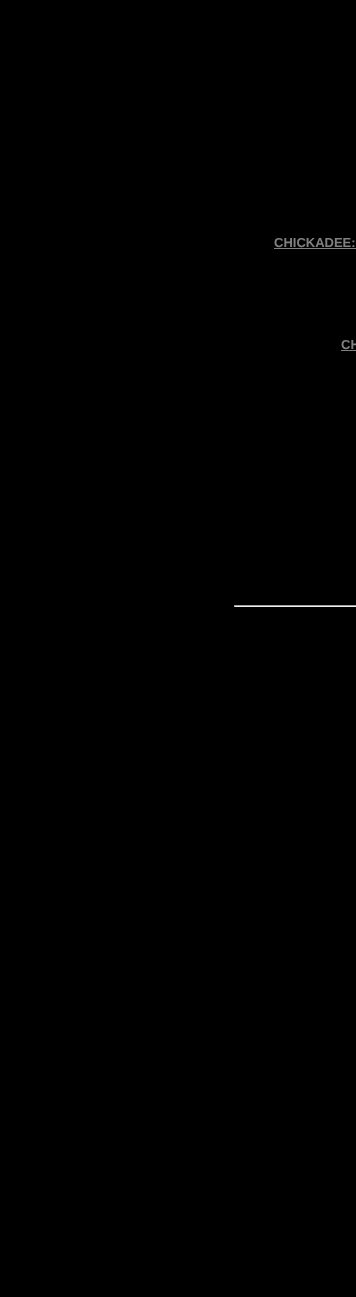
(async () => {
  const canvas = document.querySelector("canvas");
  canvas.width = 356;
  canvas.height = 1297;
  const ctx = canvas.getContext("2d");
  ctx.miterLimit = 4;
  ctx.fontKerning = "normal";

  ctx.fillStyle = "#000000";
  ctx.fillRect(0, 0, 356, 1297);
  for (const [x, y, w, h, color] of [
    [274, 248, 82, 1, "#808080"],
    [341, 350, 15, 1, "#808080"],
    [234, 605, 122, 1, "#9f9f9f"],
    [234, 606, 122, 1, "#eeeeee"],
    [234, 605, 1, 2, "#9f9f9f"],
  ]) {
    ctx.fillStyle = color;
    ctx.fillRect(x, y, w, h);
  }
  ctx.font = "bold 13px Liberation Sans";
  ctx.fillStyle = "#808080";
  ctx.fillText("CHICKADEE:", 274, 247);
  ctx.fillText("CH", 341, 349);
})();
